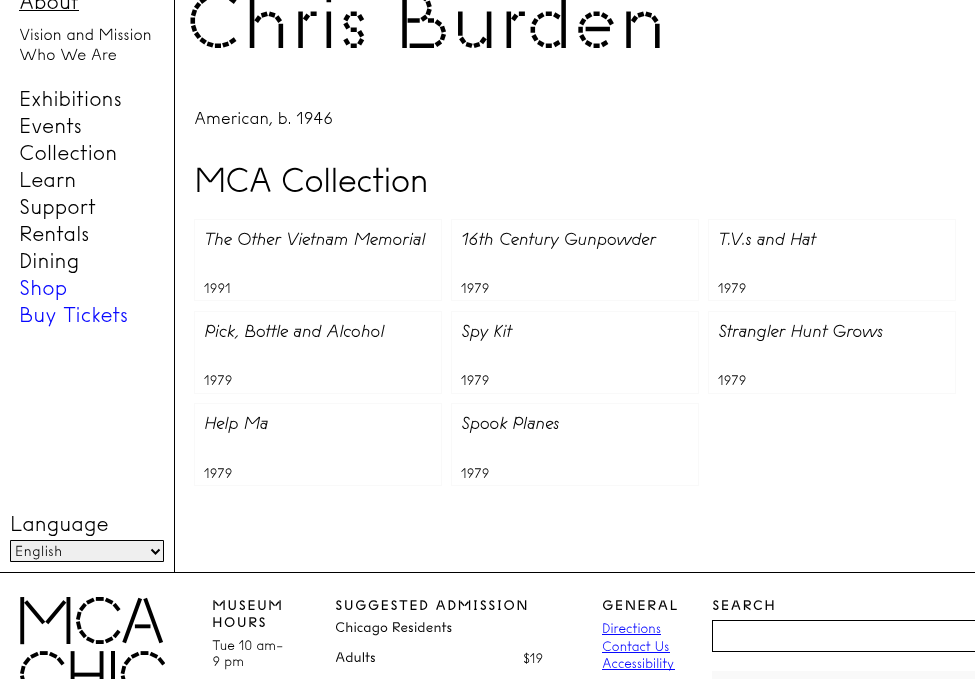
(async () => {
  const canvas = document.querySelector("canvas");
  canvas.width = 975;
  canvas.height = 679;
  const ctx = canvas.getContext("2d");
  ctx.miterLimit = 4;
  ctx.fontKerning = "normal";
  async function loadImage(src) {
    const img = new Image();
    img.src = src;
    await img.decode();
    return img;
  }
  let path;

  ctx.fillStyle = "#ffffff";
  ctx.fillRect(0, 0, 975, 679);
  ctx.fillStyle = "#000000";
  ctx.fillRect(174, 0, 1, 572);
  ctx.fillRect(19, 10, 60, 1);
  ctx.fillStyle = "#efefef";
  ctx.beginPath();
  ctx.rect(10.5, 540.5, 153, 21);
  ctx.fill();
  ctx.strokeStyle = "#000000";
  ctx.stroke();
  path = new Path2D("M151.5 549.5L155.5 553.5L159.5 549.5");
  ctx.lineWidth = 2;
  ctx.stroke(path);
  ctx.strokeStyle = "#f9f9f9";
  ctx.lineWidth = 1;
  ctx.strokeRect(194.5, 219.5, 247, 81);
  ctx.strokeRect(451.5, 219.5, 247, 81);
  ctx.strokeRect(708.5, 219.5, 247, 81);
  ctx.strokeRect(194.5, 311.5, 247, 82);
  ctx.strokeRect(451.5, 311.5, 247, 82);
  ctx.strokeRect(708.5, 311.5, 247, 82);
  ctx.strokeRect(194.5, 403.5, 247, 82);
  ctx.strokeRect(451.5, 403.5, 247, 82);
  ctx.fillStyle = "#000000";
  ctx.fillRect(0, 572, 975, 1);
  ctx.drawImage(await loadImage("img/1.png"), 20, 597, 145, 82);
  for (const [x, y, w, h, color] of [
    [602, 634, 59, 1, "#0808ff"],
    [602, 652, 68, 1, "#0808ff"],
    [602, 669, 73, 1, "#0808ff"],
    [712, 620, 263, 1, "#000000"],
    [712, 651, 263, 1, "#000000"],
    [712, 620, 1, 32, "#000000"],
    [712, 671, 263, 8, "#f9f9f9"],
  ]) {
    ctx.fillStyle = color;
    ctx.fillRect(x, y, w, h);
  }
  ctx.letterSpacing = "-0.4px";
  ctx.font = "20px 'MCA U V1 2'";
  ctx.fillStyle = "#000000";
  ctx.fillText("About", 19, 9);
  ctx.font = "15px 'MCA U V1 2'";
  ctx.fillText("Vision and Mission", 19, 40);
  ctx.fillText("Who We Are", 19, 60);
  ctx.font = "20px 'MCA U V1 2'";
  for (const [text, x, y] of [
    ["Exhibitions", 19, 106],
    ["Events", 19, 133],
    ["Collection", 19, 160],
    ["Learn", 19, 187],
    ["Support", 19, 214],
    ["Rentals", 19, 241],
    ["Dining", 19, 268],
  ]) {
    ctx.fillText(text, x, y);
  }
  ctx.fillStyle = "#0808ff";
  ctx.fillText("Shop", 19, 295);
  ctx.fillText("Buy Tickets", 19, 322);
  ctx.fillStyle = "#000000";
  ctx.fillText("Language", 10, 531);
  ctx.letterSpacing = "0px";
  ctx.font = "13.5px 'MCA U V1 2'";
  ctx.fillText("English", 15, 556);
  ctx.letterSpacing = "-0.4px";
  ctx.font = "72px 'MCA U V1'";
  ctx.fillText("Chris Burden", 185, 48);
  ctx.font = "16px 'MCA U V1 2'";
  ctx.fillText("American, b. 1946", 194, 124);
  ctx.letterSpacing = "-1.6px";
  ctx.font = "32px 'MCA U V1 2'";
  ctx.fillText("MCA Collection", 194, 192);
  ctx.letterSpacing = "-0.4px";
  ctx.font = "italic 500 16px 'MCA U V1'";
  ctx.fillText("The Other Vietnam Memorial", 204, 245);
  ctx.font = "12.75px 'MCA U V1 2'";
  ctx.fillText("1991", 204, 293);
  ctx.font = "italic 500 16px 'MCA U V1'";
  ctx.fillText("16th Century Gunpowder", 461, 245);
  ctx.font = "12.75px 'MCA U V1 2'";
  ctx.fillText("1979", 461, 293);
  ctx.font = "italic 500 16px 'MCA U V1'";
  ctx.fillText("T.V.s and Hat", 718, 245);
  ctx.font = "12.75px 'MCA U V1 2'";
  ctx.fillText("1979", 718, 293);
  ctx.font = "italic 500 16px 'MCA U V1'";
  ctx.fillText("Pick, Bottle and Alcohol", 204, 337);
  ctx.font = "12.75px 'MCA U V1 2'";
  ctx.fillText("1979", 204, 385);
  ctx.font = "italic 500 16px 'MCA U V1'";
  ctx.fillText("Spy Kit", 461, 337);
  ctx.font = "12.75px 'MCA U V1 2'";
  ctx.fillText("1979", 461, 385);
  ctx.font = "italic 500 16px 'MCA U V1'";
  ctx.fillText("Strangler Hunt Grows", 718, 337);
  ctx.font = "12.75px 'MCA U V1 2'";
  ctx.fillText("1979", 718, 385);
  ctx.font = "italic 500 16px 'MCA U V1'";
  ctx.fillText("Help Ma", 204, 429);
  ctx.font = "12.75px 'MCA U V1 2'";
  ctx.fillText("1979", 204, 478);
  ctx.font = "italic 500 16px 'MCA U V1'";
  ctx.fillText("Spook Planes", 461, 429);
  ctx.font = "12.75px 'MCA U V1 2'";
  ctx.fillText("1979", 461, 478);
  ctx.letterSpacing = "1.2px";
  ctx.font = "12.75px 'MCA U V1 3'";
  ctx.fillText("MUSEUM", 212, 610);
  ctx.fillText("HOURS", 212, 627);
  ctx.letterSpacing = "-0.4px";
  ctx.font = "12.75px 'MCA U V1 2'";
  ctx.fillText("Tue 10 am–", 212, 650);
  ctx.fillText("9 pm", 212, 666);
  ctx.letterSpacing = "1.2px";
  ctx.font = "12.75px 'MCA U V1 3'";
  ctx.fillText("SUGGESTED ADMISSION", 335, 610);
  ctx.letterSpacing = "-0.4px";
  ctx.font = "12.75px 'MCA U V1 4'";
  ctx.fillText("Chicago Residents", 335, 632);
  ctx.fillText("Adults", 335, 662);
  ctx.font = "12.75px 'MCA U V1 2'";
  ctx.fillText("$19", 523, 663);
  ctx.letterSpacing = "1.2px";
  ctx.font = "12.75px 'MCA U V1 3'";
  ctx.fillText("GENERAL", 602, 610);
  ctx.letterSpacing = "-0.4px";
  ctx.font = "12.75px 'MCA U V1 2'";
  ctx.fillStyle = "#0808ff";
  for (const [text, x, y] of [
    ["Directions", 602, 633],
    ["Contact Us", 602, 651],
    ["Accessibility", 602, 668],
  ]) {
    ctx.fillText(text, x, y);
  }
  ctx.letterSpacing = "1.2px";
  ctx.font = "12.75px 'MCA U V1 3'";
  ctx.fillStyle = "#000000";
  ctx.fillText("SEARCH", 712, 610);
})();
